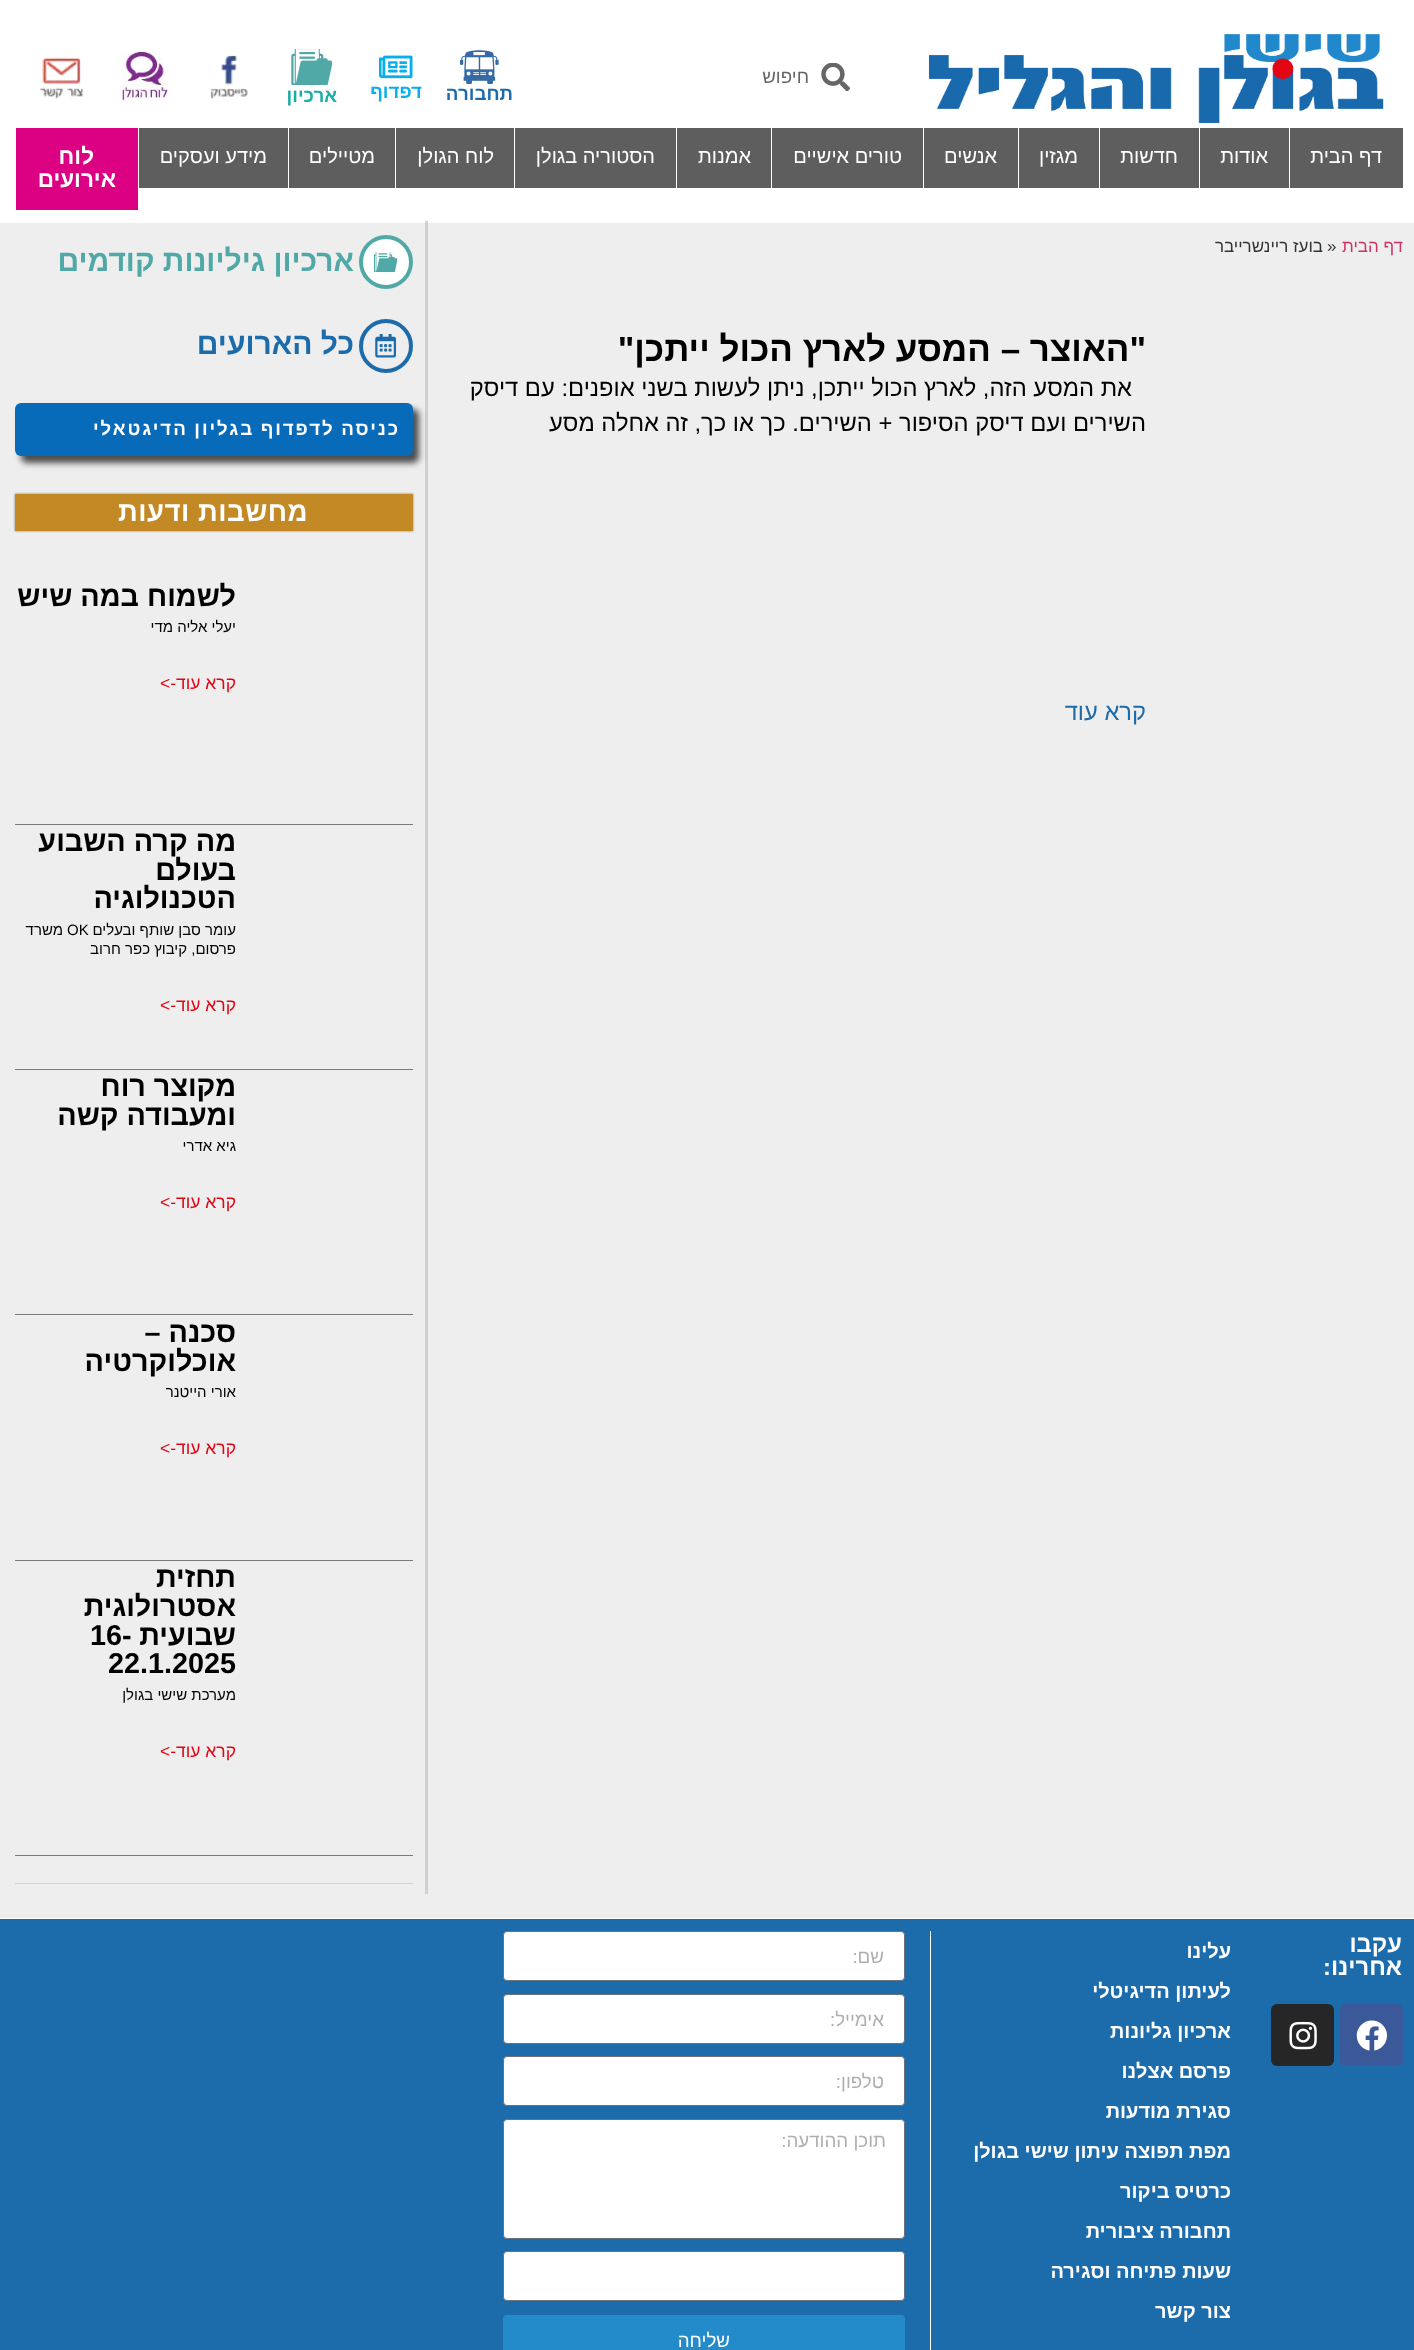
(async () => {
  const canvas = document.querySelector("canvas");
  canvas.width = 1414;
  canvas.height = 2350;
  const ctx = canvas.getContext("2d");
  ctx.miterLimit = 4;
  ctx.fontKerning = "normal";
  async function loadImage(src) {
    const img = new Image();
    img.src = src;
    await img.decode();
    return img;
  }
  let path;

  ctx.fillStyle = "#ffffff";
  ctx.fillRect(0, 0, 1414, 2350);
  ctx.drawImage(await loadImage("img/1.png"), 928, 34, 456, 90);
  ctx.drawImage(await loadImage("img/2.png"), 821, 63, 29, 28);
  ctx.drawImage(await loadImage("img/3.png"), 460, 50, 39, 34);
  ctx.drawImage(await loadImage("img/4.png"), 379, 55, 34, 24);
  ctx.drawImage(await loadImage("img/5.png"), 291, 49, 41, 36);
  ctx.drawImage(await loadImage("img/6.png"), 210, 54, 38, 45);
  ctx.drawImage(await loadImage("img/7.png"), 122, 51, 46, 51);
  ctx.drawImage(await loadImage("img/8.png"), 40, 57, 43, 42);
  for (const [x, y, w, h, color] of [
    [139, 128, 1264, 60, "#5e5e5e"],
    [1289, 128, 1, 60, "#ffffff"],
    [1199, 128, 1, 60, "#ffffff"],
    [1099, 128, 1, 60, "#ffffff"],
    [1018, 128, 1, 60, "#ffffff"],
    [923, 128, 1, 60, "#ffffff"],
    [771, 128, 1, 60, "#ffffff"],
    [676, 128, 1, 60, "#ffffff"],
    [514, 128, 1, 60, "#ffffff"],
    [395, 128, 1, 60, "#ffffff"],
    [288, 128, 1, 60, "#ffffff"],
    [16, 128, 122, 82, "#dc0083"],
    [0, 223, 1414, 1695, "#eeeeee"],
  ]) {
    ctx.fillStyle = color;
    ctx.fillRect(x, y, w, h);
  }
  ctx.fillStyle = "rgba(178, 178, 178, 0.5)";
  path = new Path2D("M5 221H425V1894H5H428V221Z");
  ctx.fill(path);
  ctx.fillStyle = "#feffff";
  ctx.beginPath();
  ctx.arc(386, 262, 25, 0, Math.PI * 2);
  ctx.fill();
  ctx.strokeStyle = "#51a9a7";
  ctx.lineWidth = 4;
  ctx.stroke();
  ctx.drawImage(await loadImage("img/9.png"), 374, 252, 23, 20);
  ctx.beginPath();
  ctx.arc(386, 346, 25, 0, Math.PI * 2);
  ctx.strokeStyle = "#1c6cac";
  ctx.stroke();
  ctx.drawImage(await loadImage("img/10.png"), 375, 334, 21, 24);
  ctx.fillStyle = "rgba(0, 0, 0, 0.68)";
  ctx.filter = "blur(3px)";
  ctx.beginPath();
  ctx.roundRect(21, 409, 398, 54, 6);
  ctx.fill();
  ctx.filter = "none";
  ctx.fillStyle = "#076bba";
  ctx.beginPath();
  ctx.roundRect(15, 403, 398, 53, 6);
  ctx.fill();
  ctx.fillStyle = "rgba(0, 0, 0, 0.5)";
  ctx.filter = "blur(1px)";
  ctx.beginPath();
  ctx.rect(15, 494, 398, 37);
  ctx.fill();
  ctx.filter = "none";
  for (const [x, y, w, h, color] of [
    [15, 494, 398, 37, "#c38925"],
    [15, 824, 398, 1, "#7a7a7a"],
    [15, 1069, 398, 1, "#7a7a7a"],
    [15, 1314, 398, 1, "#7a7a7a"],
    [15, 1560, 398, 1, "#7a7a7a"],
    [15, 1855, 398, 1, "#7a7a7a"],
    [15, 1883, 398, 1, "#d3d3d3"],
    [0, 1919, 1414, 431, "#1c6cac"],
  ]) {
    ctx.fillStyle = color;
    ctx.fillRect(x, y, w, h);
  }
  ctx.fillStyle = "#3b5998";
  ctx.beginPath();
  ctx.roundRect(1340, 2004, 63, 62, 6);
  ctx.fill();
  ctx.drawImage(await loadImage("img/11.png"), 1356, 2020, 31, 31);
  ctx.fillStyle = "#262626";
  ctx.beginPath();
  ctx.roundRect(1271, 2004, 63, 62, 6);
  ctx.fill();
  ctx.drawImage(await loadImage("img/12.png"), 1289, 2021, 28, 29);
  ctx.fillStyle = "#ffffff";
  ctx.fillRect(930, 1931, 1, 419);
  ctx.beginPath();
  ctx.roundRect(503.5, 1931.5, 401, 49, 3.5);
  ctx.fill();
  ctx.strokeStyle = "#69727d";
  ctx.lineWidth = 1;
  ctx.stroke();
  ctx.beginPath();
  ctx.roundRect(503.5, 1994.5, 401, 49, 3.5);
  ctx.fill();
  ctx.stroke();
  ctx.beginPath();
  ctx.roundRect(503.5, 2056.5, 401, 49, 3.5);
  ctx.fill();
  ctx.stroke();
  ctx.beginPath();
  ctx.roundRect(503.5, 2119.5, 401, 119, 3.5);
  ctx.fill();
  ctx.stroke();
  ctx.beginPath();
  ctx.roundRect(503.5, 2251.5, 401, 49, 3.5);
  ctx.fill();
  ctx.stroke();
  ctx.fillStyle = "#248bcb";
  ctx.beginPath();
  ctx.roundRect(503, 2315, 402, 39, 4);
  ctx.fill();
  ctx.direction = "rtl";
  ctx.font = "18.75px Liberation Sans";
  ctx.fillStyle = "#666666";
  ctx.fillText("חיפוש", 809, 83);
  ctx.font = "bold 18.75px Liberation Sans";
  ctx.fillStyle = "#1c6cac";
  ctx.fillText("תחבורה", 513, 100);
  ctx.fillStyle = "#09afed";
  ctx.fillText("דפדוף", 422, 98);
  ctx.fillStyle = "#1caca8";
  ctx.fillText("ארכיון", 337, 102);
  ctx.font = "20px Liberation Sans";
  ctx.fillStyle = "#ffffff";
  for (const [text, x, y] of [
    ["דף הבית", 1382, 163],
    ["אודות", 1268, 163],
    ["חדשות", 1178, 163],
    ["מגזין", 1078, 163],
    ["אנשים", 997, 163],
    ["טורים אישיים", 902, 163],
    ["אמנות", 751, 163],
    ["הסטוריה בגולן", 655, 163],
    ["לוח הגולן", 494, 163],
    ["מטיילים", 375, 163],
    ["מידע ועסקים", 267, 163],
  ]) {
    ctx.fillText(text, x, y);
  }
  ctx.font = "bold 22.5px Liberation Sans";
  ctx.fillText("לוח", 94, 164);
  ctx.fillText("אירועים", 116, 187);
  ctx.font = "17px Liberation Sans";
  ctx.fillStyle = "#cc3366";
  ctx.fillText("דף הבית", 1403, 252);
  ctx.direction = "ltr";
  ctx.fillStyle = "#333333";
  ctx.fillText("»", 1327, 252);
  ctx.direction = "rtl";
  ctx.fillText("בועז ריינשרייבר", 1323, 252);
  ctx.font = "bold 35px Liberation Sans";
  ctx.fillStyle = "#000000";
  ctx.fillText("\"האוצר – המסע לארץ הכול ייתכן\"", 1146, 361);
  ctx.font = "23.75px Liberation Sans";
  ctx.fillText("את המסע הזה, לארץ הכול ייתכן, ניתן לעשות בשני אופנים: עם דיסק", 1132, 396);
  ctx.fillText("השירים ועם דיסק הסיפור + השירים. כך או כך, זה אחלה מסע", 1146, 431);
  ctx.fillStyle = "#1c6cac";
  ctx.fillText("קרא עוד", 1146, 720);
  ctx.font = "bold 30px Liberation Sans";
  ctx.fillStyle = "#51a9a7";
  ctx.fillText("ארכיון גיליונות קודמים", 354, 271);
  ctx.fillStyle = "#1c6cac";
  ctx.fillText("כל הארועים", 354, 354);
  ctx.letterSpacing = "1.9px";
  ctx.wordSpacing = "-0.5px";
  ctx.font = "bold 18.75px Liberation Sans";
  ctx.fillStyle = "#ffffff";
  ctx.fillText("כניסה לדפדוף בגליון הדיגטאלי", 400, 435);
  ctx.letterSpacing = "0.5px";
  ctx.wordSpacing = "0px";
  ctx.font = "bold 27.5px Liberation Sans";
  ctx.fillText("מחשבות ודעות", 308, 521);
  ctx.letterSpacing = "0px";
  ctx.font = "bold 28.75px Liberation Sans";
  ctx.fillStyle = "#000000";
  ctx.fillText("לשמוח במה שיש", 236, 606);
  ctx.font = "15px Liberation Sans";
  ctx.fillText("יעלי אליה מדי", 236, 632);
  ctx.font = "17.5px Liberation Sans";
  ctx.fillStyle = "#e30414";
  ctx.fillText("קרא עוד->", 236, 689);
  ctx.font = "bold 28.75px Liberation Sans";
  ctx.fillStyle = "#000000";
  for (const [text, x, y] of [
    ["מה קרה השבוע", 236, 851],
    ["בעולם", 236, 880],
    ["הטכנולוגיה", 236, 908],
  ]) {
    ctx.fillText(text, x, y);
  }
  ctx.font = "15px Liberation Sans";
  ctx.fillText("עומר סבן שותף ובעלים", 236, 935);
  ctx.direction = "ltr";
  ctx.fillText("OK", 67, 935);
  ctx.direction = "rtl";
  ctx.fillText("משרד", 63, 935);
  ctx.fillText("פרסום, קיבוץ כפר חרוב", 236, 954);
  ctx.font = "17.5px Liberation Sans";
  ctx.fillStyle = "#e30414";
  ctx.fillText("קרא עוד->", 236, 1011);
  ctx.font = "bold 28.75px Liberation Sans";
  ctx.fillStyle = "#000000";
  ctx.fillText("מקוצר רוח", 236, 1096);
  ctx.fillText("ומעבודה קשה", 236, 1125);
  ctx.font = "15px Liberation Sans";
  ctx.fillText("גיא אדרי", 236, 1151);
  ctx.font = "17.5px Liberation Sans";
  ctx.fillStyle = "#e30414";
  ctx.fillText("קרא עוד->", 236, 1208);
  ctx.font = "bold 28.75px Liberation Sans";
  ctx.fillStyle = "#000000";
  ctx.fillText("סכנה –", 236, 1342);
  ctx.fillText("אוכלוקרטיה", 236, 1371);
  ctx.font = "15px Liberation Sans";
  ctx.fillText("אורי הייטנר", 236, 1397);
  ctx.font = "17.5px Liberation Sans";
  ctx.fillStyle = "#e30414";
  ctx.fillText("קרא עוד->", 236, 1454);
  ctx.font = "bold 28.75px Liberation Sans";
  ctx.fillStyle = "#000000";
  for (const [text, x, y] of [
    ["תחזית", 236, 1587],
    ["אסטרולוגית", 236, 1616],
    ["שבועית", 236, 1645],
  ]) {
    ctx.fillText(text, x, y);
  }
  ctx.direction = "ltr";
  ctx.fillText("16-", 90, 1645);
  ctx.fillText("22.1.2025", 108, 1673);
  ctx.direction = "rtl";
  ctx.font = "15px Liberation Sans";
  ctx.fillText("מערכת שישי בגולן", 236, 1700);
  ctx.font = "17.5px Liberation Sans";
  ctx.fillStyle = "#e30414";
  ctx.fillText("קרא עוד->", 236, 1757);
  ctx.font = "bold 23.75px Liberation Sans";
  ctx.fillStyle = "#ffffff";
  ctx.fillText("עקבו", 1402, 1952);
  ctx.fillText("אחרינו:", 1402, 1975);
  ctx.font = "bold 20px Liberation Sans";
  for (const [text, x, y] of [
    ["עלינו", 1231, 1958],
    ["לעיתון הדיגיטלי", 1231, 1998],
    ["ארכיון גליונות", 1231, 2038],
    ["פרסם אצלנו", 1231, 2078],
    ["סגירת מודעות", 1231, 2118],
    ["מפת תפוצה עיתון שישי בגולן", 1231, 2158],
    ["כרטיס ביקור", 1231, 2198],
    ["תחבורה ציבורית", 1231, 2238],
    ["שעות פתיחה וסגירה", 1231, 2278],
    ["צור קשר", 1231, 2318],
  ]) {
    ctx.fillText(text, x, y);
  }
  ctx.font = "18.75px Liberation Sans";
  ctx.fillStyle = "#afafaf";
  for (const [text, x, y] of [
    ["שם:", 884, 1963],
    ["אימייל:", 884, 2026],
    ["טלפון:", 884, 2088],
    ["תוכן ההודעה:", 886, 2147],
  ]) {
    ctx.fillText(text, x, y);
  }
  ctx.fillStyle = "#ffffff";
  ctx.fillText("שליחה", 730, 2347);
})();
